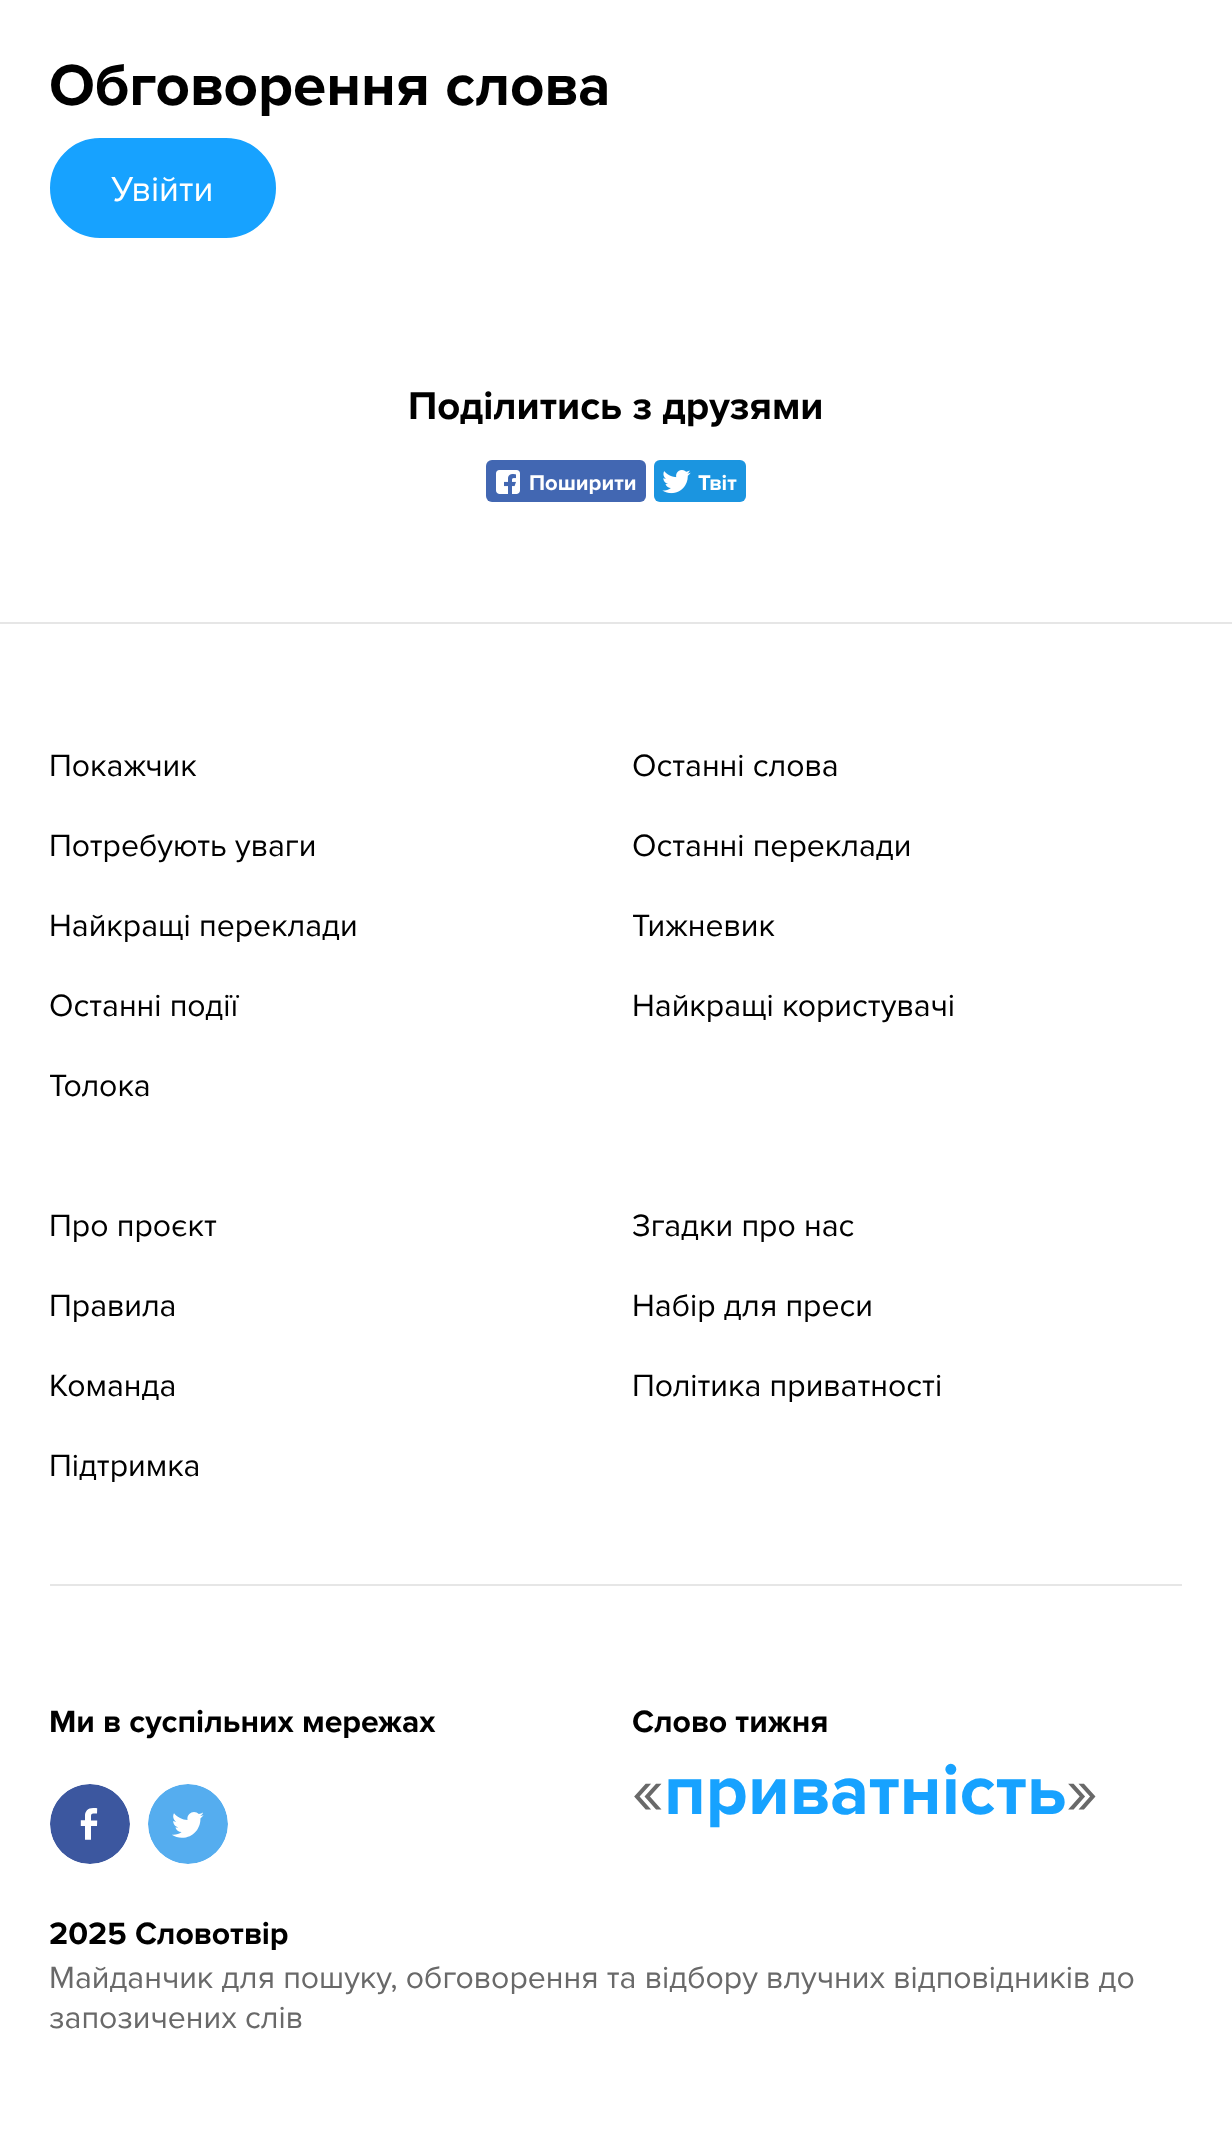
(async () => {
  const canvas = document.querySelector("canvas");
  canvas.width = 1232;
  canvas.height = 2155;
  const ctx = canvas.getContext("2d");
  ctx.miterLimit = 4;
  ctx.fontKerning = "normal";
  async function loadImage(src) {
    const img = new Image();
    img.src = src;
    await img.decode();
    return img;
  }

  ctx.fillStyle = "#ffffff";
  ctx.fillRect(0, 0, 1232, 2155);
  ctx.fillStyle = "#17a2ff";
  ctx.beginPath();
  ctx.roundRect(51, 139, 224, 98, 49);
  ctx.fill();
  ctx.strokeStyle = "#17a2ff";
  ctx.lineWidth = 2;
  ctx.stroke();
  ctx.fillStyle = "#4267b2";
  ctx.beginPath();
  ctx.roundRect(486, 460, 160, 42, 6);
  ctx.fill();
  ctx.drawImage(await loadImage("img/1.png"), 496, 470, 24, 24);
  ctx.fillStyle = "#1b95e0";
  ctx.beginPath();
  ctx.roundRect(654, 460, 92, 42, 6);
  ctx.fill();
  ctx.drawImage(await loadImage("img/2.png"), 662, 470, 29, 24);
  ctx.fillStyle = "#e6e6e6";
  ctx.fillRect(0, 622, 1232, 2);
  ctx.fillRect(50, 1584, 1132, 2);
  ctx.drawImage(await loadImage("img/3.png"), 50, 1784, 80, 80);
  ctx.drawImage(await loadImage("img/4.png"), 148, 1784, 80, 80);
  ctx.font = "bold 60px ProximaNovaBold";
  ctx.fillStyle = "#000000";
  ctx.fillText("Обговорення слова", 49, 105);
  ctx.font = "36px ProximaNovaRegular";
  ctx.fillStyle = "#ffffff";
  ctx.fillText("Увійти", 111, 201);
  ctx.font = "bold 40px ProximaNovaBold";
  ctx.fillStyle = "#000000";
  ctx.fillText("Поділитись з друзями", 408, 419);
  ctx.font = "bold 22px ProximaNovaBold";
  ctx.fillStyle = "#ffffff";
  ctx.fillText("Поширити", 529, 490);
  ctx.fillText("Твіт", 698, 490);
  ctx.font = "32px ProximaNovaRegular";
  ctx.fillStyle = "#000000";
  for (const [text, x, y] of [
    ["Покажчик", 49, 776],
    ["Потребують уваги", 49, 856],
    ["Найкращі переклади", 49, 936],
    ["Останні події", 49, 1016],
    ["Толока", 49, 1096],
    ["Останні слова", 632, 776],
    ["Останні переклади", 632, 856],
    ["Тижневик", 632, 936],
    ["Найкращі користувачі", 632, 1016],
    ["Про проєкт", 49, 1236],
    ["Правила", 49, 1316],
    ["Команда", 49, 1396],
    ["Підтримка", 49, 1476],
    ["Згадки про нас", 632, 1236],
    ["Набір для преси", 632, 1316],
    ["Політика приватності", 632, 1396],
  ]) {
    ctx.fillText(text, x, y);
  }
  ctx.font = "bold 32px ProximaNovaBold";
  ctx.fillText("Ми в суспільних мережах", 49, 1732);
  ctx.fillText("Слово тижня", 632, 1732);
  ctx.font = "72px ProximaNovaRegular";
  ctx.fillStyle = "#696969";
  ctx.fillText("«", 632, 1814);
  ctx.font = "bold 72px ProximaNovaBold";
  ctx.fillStyle = "#17a2ff";
  ctx.fillText("приватність", 664, 1814);
  ctx.font = "72px ProximaNovaRegular";
  ctx.fillStyle = "#696969";
  ctx.fillText("»", 1066, 1814);
  ctx.font = "bold 32px ProximaNovaBold";
  ctx.fillStyle = "#000000";
  ctx.fillText("2025 Словотвір", 49, 1944);
  ctx.font = "32px ProximaNovaRegular";
  ctx.fillStyle = "#696969";
  ctx.fillText("Майданчик для пошуку, обговорення та відбору влучних відповідників до", 49, 1988);
  ctx.fillText("запозичених слів", 49, 2028);
})();
